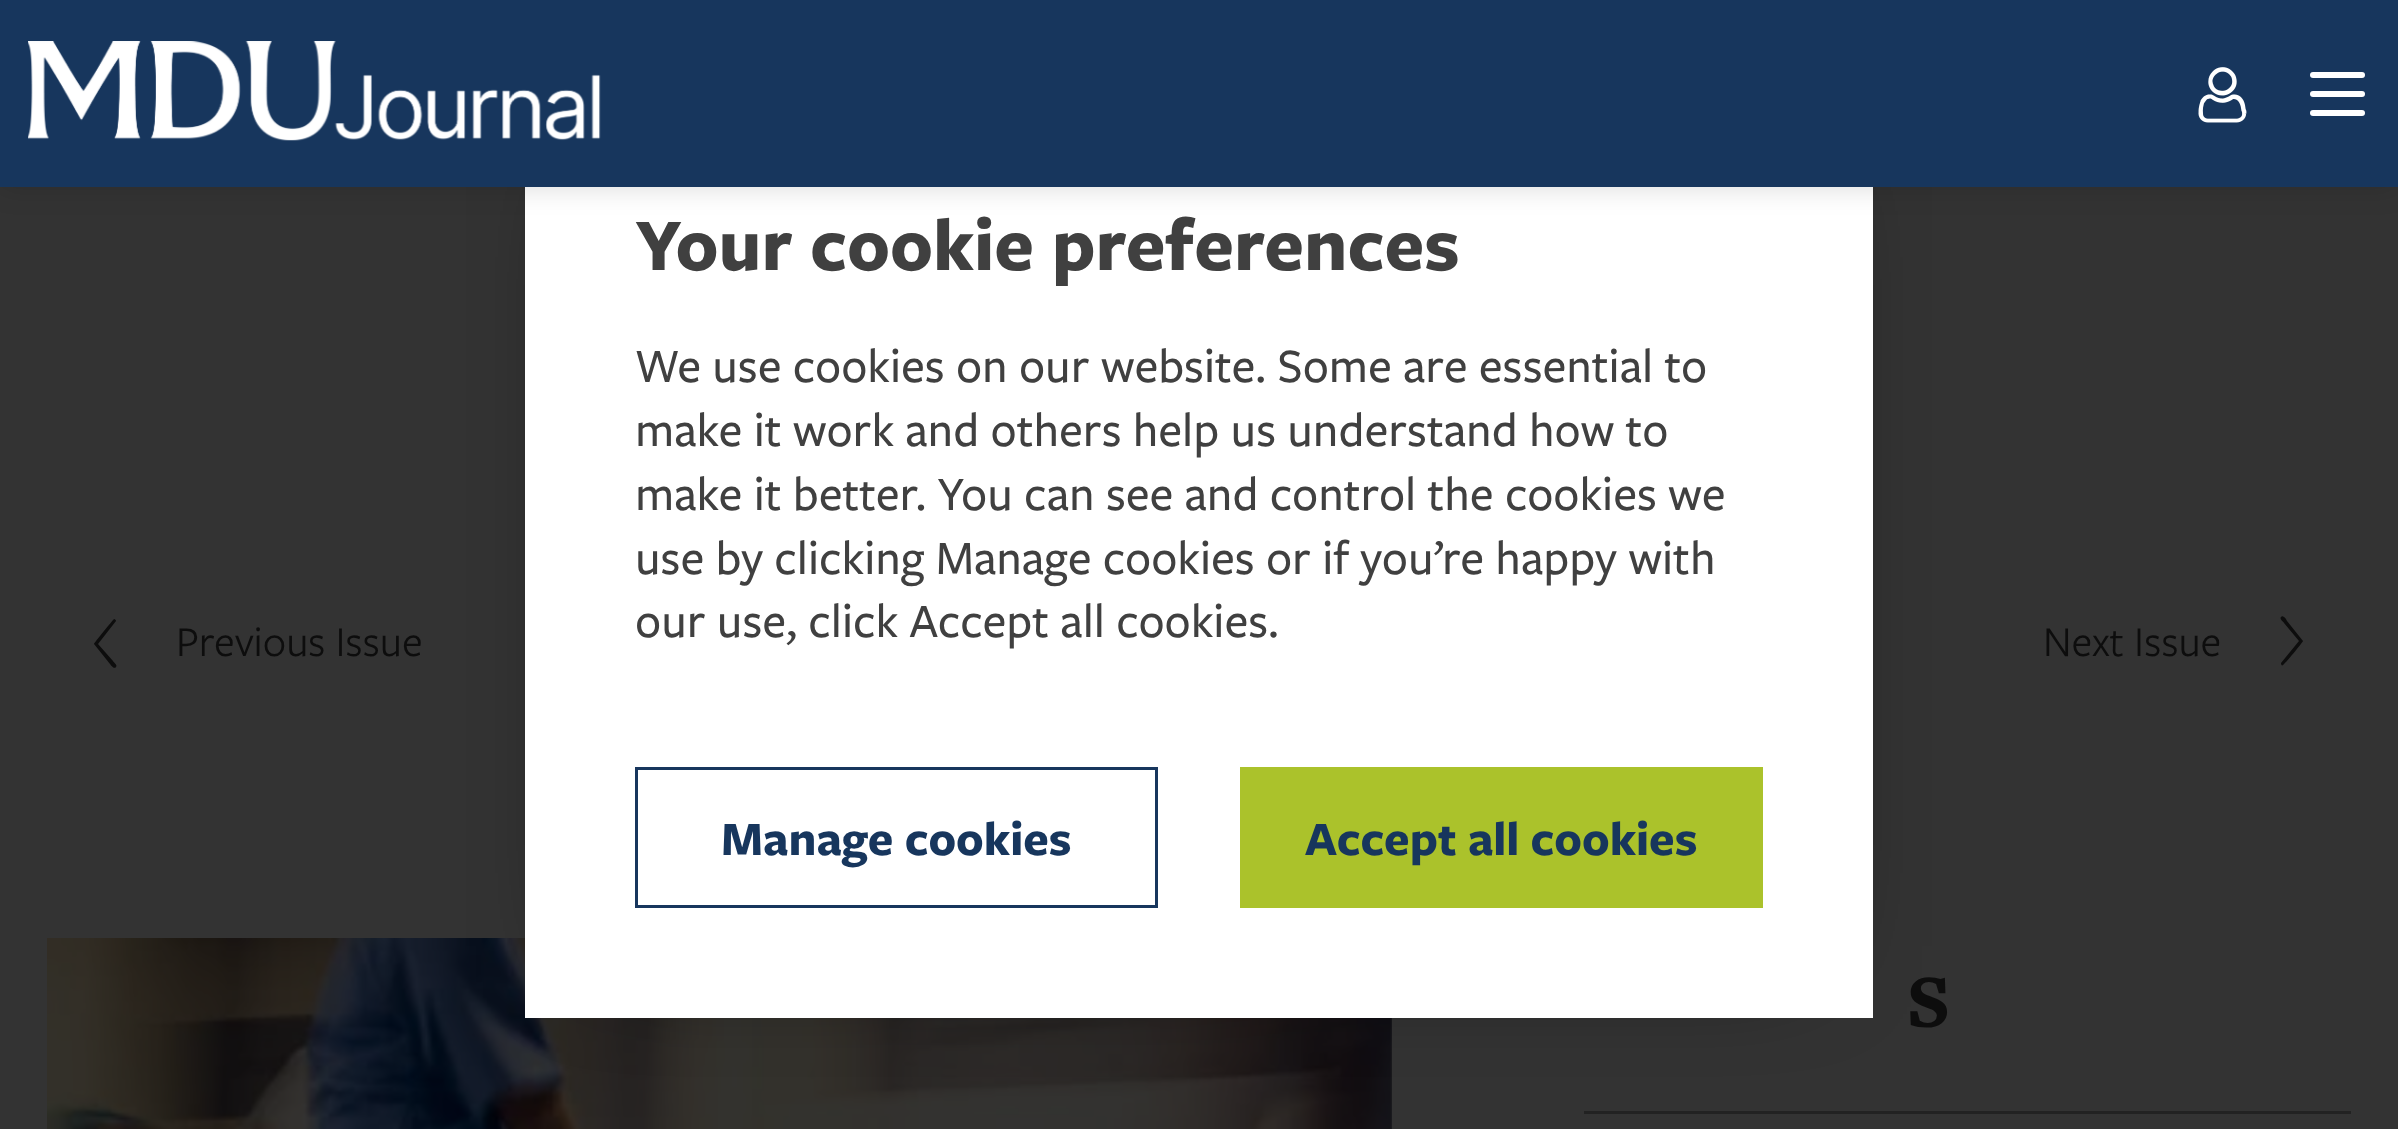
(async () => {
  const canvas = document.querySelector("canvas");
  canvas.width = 2398;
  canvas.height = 1129;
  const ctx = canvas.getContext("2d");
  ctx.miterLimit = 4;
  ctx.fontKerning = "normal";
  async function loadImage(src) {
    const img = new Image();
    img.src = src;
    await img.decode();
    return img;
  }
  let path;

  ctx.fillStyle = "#333333";
  ctx.fillRect(0, 0, 2398, 1129);
  ctx.drawImage(await loadImage("img/3.png"), 47, 938, 1345, 191);
  ctx.fillStyle = "#222222";
  ctx.fillRect(1584, 1111, 767, 3);
  ctx.fillStyle = "#000000";
  ctx.filter = "blur(55px)";
  ctx.beginPath();
  ctx.rect(597, 184, 1204, 762);
  ctx.fill();
  ctx.filter = "none";
  ctx.fillStyle = "#ffffff";
  ctx.fillRect(525, 187, 1348, 831);
  ctx.strokeStyle = "#17365d";
  ctx.lineWidth = 3;
  ctx.strokeRect(636.5, 768.5, 520, 138);
  ctx.fillStyle = "#abc22b";
  ctx.fillRect(1240, 767, 523, 141);
  ctx.fillStyle = "rgba(0, 0, 0, 0.15)";
  ctx.filter = "blur(14px)";
  ctx.beginPath();
  ctx.rect(0, 0, 2398, 187);
  ctx.fill();
  ctx.filter = "none";
  ctx.fillStyle = "#17365d";
  ctx.fillRect(0, 0, 2398, 187);
  ctx.drawImage(await loadImage("img/1.png"), 28, 41, 573, 100);
  ctx.drawImage(await loadImage("img/2.png"), 2198, 67, 49, 56);
  ctx.fillStyle = "#ffffff";
  ctx.beginPath();
  ctx.roundRect(2310, 72, 55, 6, 3);
  ctx.fill();
  ctx.beginPath();
  ctx.roundRect(2310, 91, 55, 6, 3);
  ctx.fill();
  ctx.beginPath();
  ctx.roundRect(2310, 110, 55, 6, 3);
  ctx.fill();
  ctx.fillStyle = "#0d0d0d";
  path = new Path2D("M94 644L110 664C110 664 114 670 116 667C118 665 113 662 113 661L98 644L116 621C116 620 115 619 114 619C113 620 94 643 94 644Z");
  ctx.fill(path, "evenodd");
  path = new Path2D("M2303 641L2287 621C2287 620 2283 614 2281 617C2279 619 2284 622 2284 623L2299 641L2281 663C2281 665 2282 666 2283 665C2284 665 2303 642 2303 641Z");
  ctx.fill(path, "evenodd");
  ctx.font = "bold 77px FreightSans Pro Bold";
  ctx.fillStyle = "#404040";
  ctx.fillText("Your cookie preferences", 635, 270);
  ctx.font = "500 49.5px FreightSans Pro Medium";
  for (const [text, x, y] of [
    ["We use cookies on our website. Some are essential to", 635, 382],
    ["make it work and others help us understand how to", 635, 446],
    ["make it better. You can see and control the cookies we", 635, 510],
    ["use by clicking Manage cookies or if you’re happy with", 635, 574],
    ["our use, click Accept all cookies.", 635, 637],
  ]) {
    ctx.fillText(text, x, y);
  }
  ctx.font = "bold 49.5px FreightSans Pro Bold";
  ctx.fillStyle = "#17365d";
  ctx.fillText("Manage cookies", 721, 855);
  ctx.fillText("Accept all cookies", 1305, 855);
  ctx.font = "44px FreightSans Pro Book";
  ctx.fillStyle = "#0d0d0d";
  ctx.fillText("Previous Issue", 176, 656);
  ctx.fillText("Next Issue", 2043, 656);
  ctx.font = "bold 104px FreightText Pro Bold";
  ctx.fillText("s", 1906, 1026);
})();
